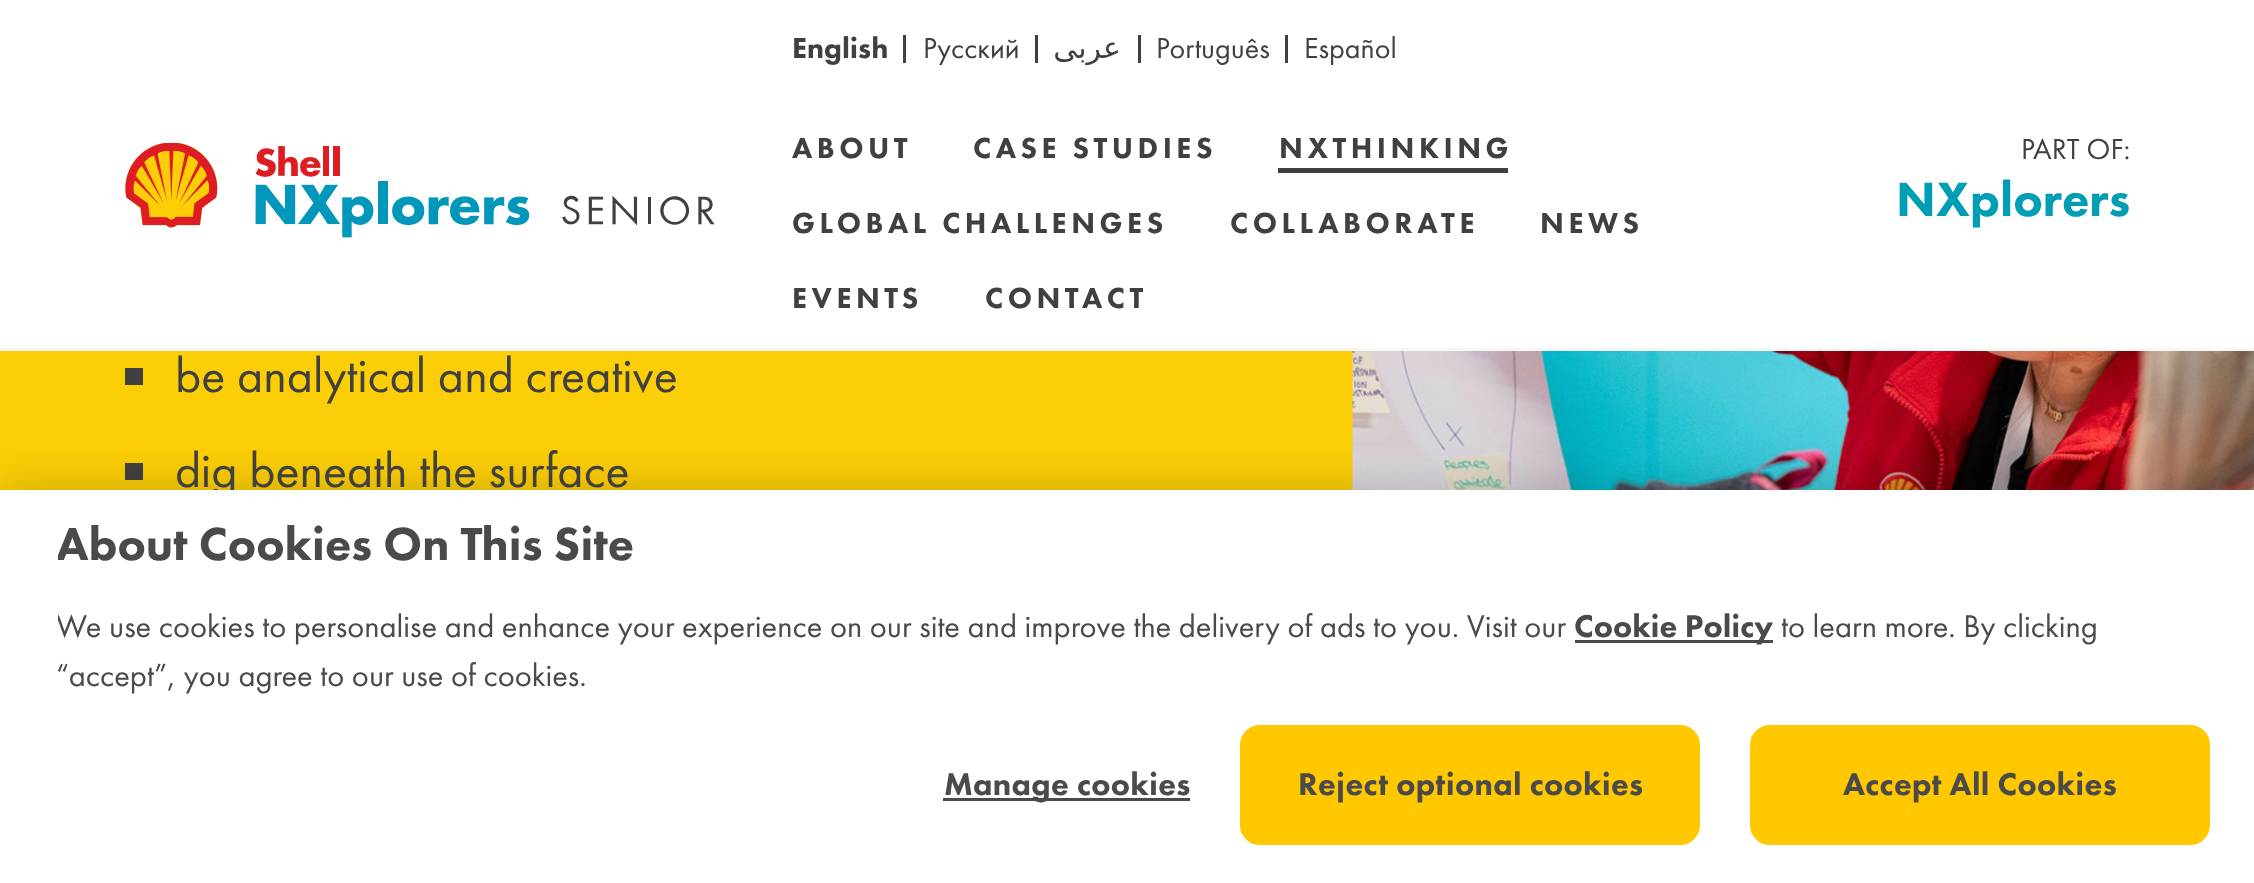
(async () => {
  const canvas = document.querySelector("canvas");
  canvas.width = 2254;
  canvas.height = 883;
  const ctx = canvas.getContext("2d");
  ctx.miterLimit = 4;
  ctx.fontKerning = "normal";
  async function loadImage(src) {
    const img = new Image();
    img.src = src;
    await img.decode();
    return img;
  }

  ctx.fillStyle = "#fbce07";
  ctx.fillRect(0, 0, 2254, 883);
  ctx.fillStyle = "#ffffff";
  ctx.fillRect(0, 0, 2254, 348);
  ctx.fillStyle = "#f7f7f7";
  ctx.fillRect(0, 348, 2254, 3);
  ctx.drawImage(await loadImage("img/1.png"), 125, 143, 590, 95);
  for (const [x, y, w, h, color] of [
    [903, 35, 3, 28, "#404040"],
    [1035, 35, 3, 28, "#404040"],
    [1138, 35, 3, 28, "#404040"],
    [1285, 35, 3, 28, "#404040"],
    [1278, 168, 230, 5, "#404040"],
    [125, 368, 18, 17, "#404040"],
    [125, 463, 18, 17, "#404040"],
  ]) {
    ctx.fillStyle = color;
    ctx.fillRect(x, y, w, h);
  }
  ctx.drawImage(await loadImage("img/2.png"), 1352, 351, 902, 139);
  ctx.fillStyle = "rgba(0, 0, 0, 0.2)";
  ctx.filter = "blur(22.5px)";
  ctx.beginPath();
  ctx.rect(0, 490, 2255, 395);
  ctx.fill();
  ctx.filter = "none";
  ctx.font = "900 30px Futura PT";
  ctx.fillStyle = "#404040";
  ctx.fillText("English", 792, 58);
  ctx.font = "30px Futura PT";
  ctx.fillText("Русский", 923, 58);
  ctx.direction = "rtl";
  ctx.font = "30px DejaVu Sans";
  ctx.fillText("عربى", 1121, 58);
  ctx.direction = "ltr";
  ctx.font = "30px Futura PT";
  ctx.fillText("Português", 1156, 58);
  ctx.fillText("Español", 1304, 58);
  ctx.letterSpacing = "4.5px";
  ctx.font = "900 30px Futura PT";
  for (const [text, x, y] of [
    ["ABOUT", 792, 158],
    ["CASE STUDIES", 973, 158],
    ["NXTHINKING", 1279, 158],
    ["GLOBAL CHALLENGES", 792, 233],
    ["COLLABORATE", 1230, 233],
    ["NEWS", 1540, 233],
    ["EVENTS", 792, 308],
    ["CONTACT", 985, 308],
  ]) {
    ctx.fillText(text, x, y);
  }
  ctx.letterSpacing = "0px";
  ctx.font = "30px Futura PT";
  ctx.fillText("PART OF:", 2021, 159);
  ctx.font = "900 50px Futura PT";
  ctx.fillStyle = "#009eb4";
  ctx.fillText("NXplorers", 1896, 216);
  ctx.font = "50px Futura PT";
  ctx.fillStyle = "#404040";
  ctx.fillText("be analytical and creative", 175, 392);
  ctx.fillText("dig beneath the surface", 175, 487);
  ctx.fillStyle = "#ffffff";
  ctx.fillRect(0, 490, 2254, 393);
  ctx.save();
  ctx.beginPath();
  ctx.rect(58, 515, 2140, 185);
  ctx.clip();
  ctx.font = "900 48px Futura PT";
  ctx.fillStyle = "#4a4a4a";
  ctx.fillText("About Cookies On This Site", 56, 560);
  ctx.font = "32.5px Futura PT";
  ctx.fillText("We use cookies to personalise and enhance your experience on our site and improve the delivery of ads to you. Visit our", 56, 637);
  ctx.restore();
  ctx.fillStyle = "#4a4a4a";
  ctx.fillRect(1575, 640, 198, 3);
  ctx.font = "900 32.5px Futura PT";
  ctx.fillText("Cookie Policy", 1574, 637);
  ctx.font = "32.5px Futura PT";
  ctx.fillText("to learn more. By clicking", 1781, 637);
  ctx.fillText("“accept”, you agree to our use of cookies.", 56, 686);
  ctx.fillRect(943, 798, 247, 3);
  ctx.letterSpacing = "0.3px";
  ctx.font = "900 32.5px Futura PT";
  ctx.fillText("Manage cookies", 944, 795);
  ctx.fillStyle = "#ffc800";
  ctx.beginPath();
  ctx.roundRect(1241.5, 726.5, 457, 117, 18.5);
  ctx.fill();
  ctx.strokeStyle = "#ffc800";
  ctx.lineWidth = 3;
  ctx.stroke();
  ctx.fillStyle = "#4a4a4a";
  ctx.fillText("Reject optional cookies", 1298, 795);
  ctx.fillStyle = "#ffc800";
  ctx.beginPath();
  ctx.roundRect(1751.5, 726.5, 457, 117, 18.5);
  ctx.fill();
  ctx.stroke();
  ctx.fillStyle = "#4a4a4a";
  ctx.fillText("Accept All Cookies", 1843, 795);
})();
